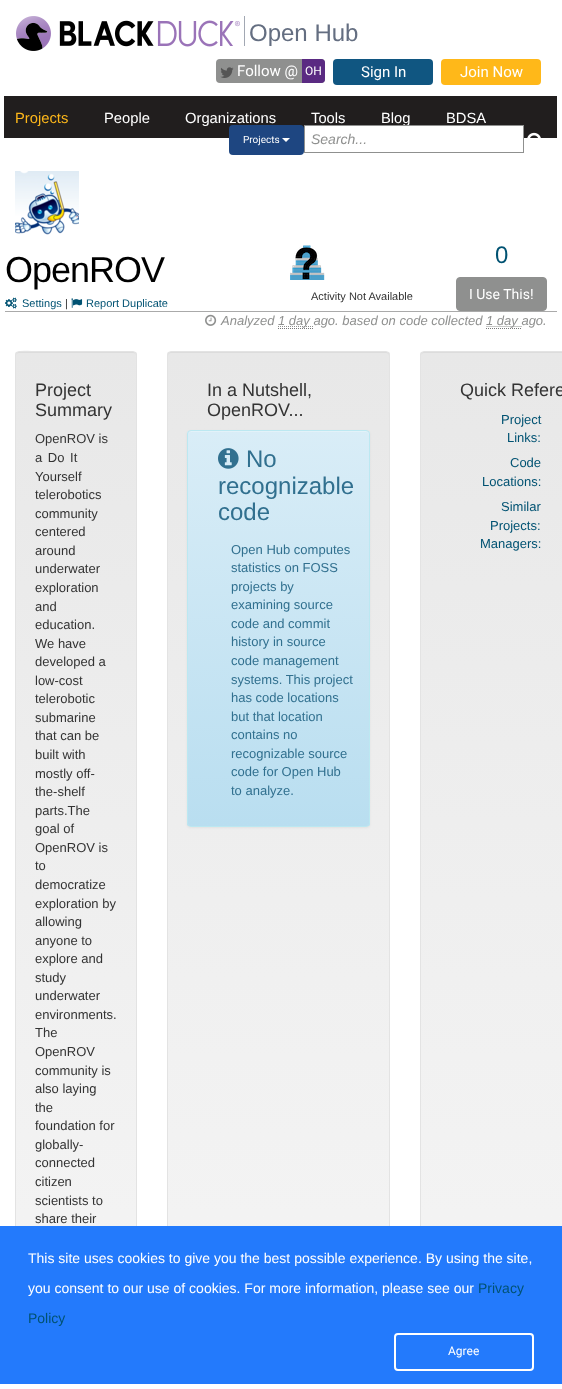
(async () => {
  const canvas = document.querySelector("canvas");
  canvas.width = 562;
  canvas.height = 1389;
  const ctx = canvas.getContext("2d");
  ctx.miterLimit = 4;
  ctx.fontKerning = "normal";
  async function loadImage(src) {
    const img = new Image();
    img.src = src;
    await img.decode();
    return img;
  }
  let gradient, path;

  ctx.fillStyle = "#ffffff";
  ctx.fillRect(0, 0, 562, 1389);
  ctx.drawImage(await loadImage("img/1.png"), 16, 16, 224, 35);
  ctx.fillStyle = "#a2a8b3";
  ctx.fillRect(244, 16, 1, 30);
  ctx.fillStyle = "#8f908f";
  ctx.beginPath();
  ctx.roundRect(216, 59, 109, 24, 4);
  ctx.fill();
  ctx.drawImage(await loadImage("img/2.png"), 220, 67, 14, 11);
  ctx.fillStyle = "#5a2a82";
  ctx.beginPath();
  ctx.roundRect(302, 59, 23, 24, [0, 4, 4, 0]);
  ctx.fill();
  ctx.fillStyle = "#105681";
  ctx.beginPath();
  ctx.roundRect(333, 59, 100, 26, 4);
  ctx.fill();
  ctx.fillStyle = "#ffb819";
  ctx.beginPath();
  ctx.roundRect(441, 59, 100, 26, 4);
  ctx.fill();
  ctx.fillStyle = "#211e1e";
  ctx.fillRect(4, 96, 553, 42);
  ctx.fillStyle = "#ffffff";
  ctx.fillRect(305, 126, 218, 12);
  ctx.drawImage(await loadImage("img/3.png"), 527, 132, 14, 6);
  ctx.drawImage(await loadImage("img/4.png"), 15, 171, 64, 64);
  ctx.drawImage(await loadImage("img/5.png"), 5, 297, 12, 12);
  ctx.drawImage(await loadImage("img/6.png"), 71, 298, 12, 10);
  ctx.drawImage(await loadImage("img/7.png"), 290, 245, 35, 35);
  ctx.fillStyle = "#8f908f";
  ctx.beginPath();
  ctx.roundRect(456.5, 277.5, 90, 33, 3.5);
  ctx.fill();
  ctx.strokeStyle = "#8f908f";
  ctx.stroke();
  ctx.fillStyle = "#aaaaaa";
  ctx.fillRect(5, 311, 552, 1);
  ctx.drawImage(await loadImage("img/8.png"), 205, 314, 12, 12);
  path = new Path2D("M278 328.5H314");
  ctx.strokeStyle = "#777777";
  ctx.setLineDash([1, 1]);
  ctx.stroke(path);
  path = new Path2D("M278 326.5H313.5");
  ctx.strokeStyle = "#8f908f";
  ctx.stroke(path);
  path = new Path2D("M486 328.5H522");
  ctx.strokeStyle = "#777777";
  ctx.stroke(path);
  path = new Path2D("M486.5 326.5H521.5");
  ctx.strokeStyle = "#8f908f";
  ctx.stroke(path);
  ctx.save();
  ctx.beginPath();
  ctx.roundRect(15, 351, 122, 1020, 4);
  ctx.clip();
  gradient = ctx.createLinearGradient(76, 352, 76, 1370);
  gradient.addColorStop(0, "#e8e8e8");
  gradient.addColorStop(1, "#f5f5f5");
  ctx.fillStyle = gradient;
  ctx.fillRect(15, 352, 122, 874);
  ctx.restore();
  ctx.fillStyle = "rgba(0, 0, 0, 0.05)";
  path = new Path2D("M19 353H133C135 353 136 354 136 356C136 354 135 352 133 352H38C37 352 16 347 16 356C16 354 17 353 19 353Z");
  ctx.fill(path);
  ctx.beginPath();
  ctx.roundRect(15.5, 351.5, 121, 1019, 3.5);
  ctx.strokeStyle = "#e3e3e3";
  ctx.setLineDash([]);
  ctx.stroke();
  ctx.save();
  ctx.beginPath();
  ctx.roundRect(167, 351, 223, 1020, 4);
  ctx.clip();
  gradient = ctx.createLinearGradient(278, 352, 279, 1370);
  gradient.addColorStop(0, "#e8e8e8");
  gradient.addColorStop(1, "#f5f5f5");
  ctx.fillStyle = gradient;
  ctx.fillRect(167, 352, 223, 874);
  ctx.restore();
  ctx.fillStyle = "#dcdcdc";
  path = new Path2D("M171 353H386C388 353 389 354 389 356V355C389 353 388 352 386 352H171C169 352 168 353 168 355V356C168 354 169 353 171 353Z");
  ctx.fill(path);
  ctx.beginPath();
  ctx.roundRect(167.5, 351.5, 222, 1019, 3.5);
  ctx.stroke();
  ctx.fillStyle = "rgba(0, 0, 0, 0.05)";
  ctx.filter = "blur(1px)";
  ctx.beginPath();
  ctx.roundRect(187, 431, 183, 397, 4);
  ctx.fill();
  ctx.filter = "none";
  ctx.save();
  ctx.beginPath();
  ctx.roundRect(187, 430, 183, 397, 4);
  ctx.clip();
  gradient = ctx.createLinearGradient(279, 431, 279, 826);
  gradient.addColorStop(0, "#d9edf7");
  gradient.addColorStop(1, "#b9def0");
  ctx.fillStyle = gradient;
  ctx.fillRect(187, 431, 183, 395);
  ctx.restore();
  ctx.fillStyle = "#e3f2f9";
  path = new Path2D("M191 432H367L368 433L369 435V434C369 432 368 431 366 431H191C189 431 188 432 188 434V435C188 433 189 432 191 432Z");
  ctx.fill(path);
  ctx.beginPath();
  ctx.roundRect(187.5, 430.5, 182, 396, 3.5);
  ctx.strokeStyle = "#bce8f1";
  ctx.stroke();
  ctx.drawImage(await loadImage("img/9.png"), 218, 448, 21, 21);
  ctx.save();
  ctx.beginPath();
  ctx.roundRect(420, 351, 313, 1020, 4);
  ctx.clip();
  gradient = ctx.createLinearGradient(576, 352, 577, 1370);
  gradient.addColorStop(0, "#e8e8e8");
  gradient.addColorStop(1, "#f5f5f5");
  ctx.fillStyle = gradient;
  ctx.fillRect(420, 352, 142, 874);
  ctx.restore();
  ctx.fillStyle = "#dcdcdc";
  path = new Path2D("M424 353H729C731 353 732 354 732 356L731 353L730 352H424C422 352 421 354 421 356C421 354 422 353 424 353Z");
  ctx.fill(path);
  ctx.beginPath();
  ctx.roundRect(420.5, 351.5, 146, 1019, 3.5);
  ctx.strokeStyle = "#e3e3e3";
  ctx.stroke();
  ctx.fillStyle = "#237afc";
  ctx.fillRect(0, 1226, 562, 158);
  ctx.beginPath();
  ctx.roundRect(395, 1334, 138, 36, 3);
  ctx.strokeStyle = "#ffffff";
  ctx.lineWidth = 2;
  ctx.stroke();
  ctx.font = "24px Liberation Sans";
  ctx.fillStyle = "#646e81";
  ctx.fillText("Open Hub", 249, 41);
  ctx.font = "15px Roboto";
  ctx.fillStyle = "#ffffff";
  ctx.fillText("Follow @", 237, 76);
  ctx.font = "12px Roboto";
  ctx.fillText("OH", 305, 75);
  ctx.font = "15px Roboto";
  ctx.fillText("Sign In", 361, 77);
  ctx.fillText("Join Now", 460, 77);
  ctx.font = "14.75px Liberation Sans";
  ctx.fillStyle = "#fdb71a";
  ctx.fillText("Projects", 15, 123);
  ctx.fillStyle = "#ffffff";
  for (const [text, x, y] of [
    ["People", 104, 123],
    ["Organizations", 185, 123],
    ["Tools", 311, 123],
    ["Blog", 381, 123],
    ["BDSA", 446, 123],
  ]) {
    ctx.fillText(text, x, y);
  }
  ctx.fillStyle = "#1e4681";
  ctx.beginPath();
  ctx.roundRect(229, 125, 75, 30, 4);
  ctx.fill();
  ctx.font = "10px Roboto";
  ctx.fillStyle = "#ffffff";
  ctx.fillText("Projects", 243, 143);
  path = new Path2D("M282 138H290L286 142Z");
  ctx.fill(path);
  ctx.strokeStyle = "#8f908f";
  ctx.lineWidth = 1;
  ctx.strokeRect(304.5, 125.5, 219, 27);
  ctx.font = "italic 14px Liberation Sans";
  ctx.fillStyle = "#8f908f";
  ctx.fillText("Search...", 311, 144);
  ctx.letterSpacing = "-1px";
  ctx.font = "36px Liberation Sans";
  ctx.fillStyle = "#000000";
  ctx.fillText("OpenROV", 5, 282);
  ctx.letterSpacing = "0px";
  ctx.font = "11px Liberation Sans";
  ctx.fillStyle = "#005272";
  ctx.fillText("Settings", 22, 307);
  ctx.fillStyle = "#333333";
  ctx.fillText("|", 65, 307);
  ctx.fillStyle = "#005272";
  ctx.fillText("Report Duplicate", 86, 307);
  ctx.fillStyle = "#333333";
  ctx.fillText("Activity Not Available", 311, 300);
  ctx.font = "24px Liberation Sans";
  ctx.fillStyle = "#005272";
  ctx.fillText("0", 495, 263);
  ctx.font = "14px Roboto";
  ctx.fillStyle = "#ffffff";
  ctx.fillText("I Use This!", 469, 299);
  ctx.font = "italic 13px Liberation Sans";
  ctx.fillStyle = "#8f908f";
  for (const [text, x, y] of [
    ["Analyzed", 221, 325],
    ["1 day ago. based on code collected", 278, 325],
    ["1 day ago.", 486, 325],
  ]) {
    ctx.fillText(text, x, y);
  }
  ctx.font = "18px Liberation Sans";
  ctx.fillStyle = "#333333";
  ctx.fillText("Project", 35, 396);
  ctx.fillText("Summary", 35, 416);
  ctx.font = "13px Liberation Sans";
  ctx.fillText("OpenROV is", 35, 443);
  ctx.wordSpacing = "2px";
  ctx.fillText("a Do It", 35, 462);
  ctx.wordSpacing = "0px";
  for (const [text, x, y] of [
    ["Yourself", 35, 481],
    ["telerobotics", 35, 499],
    ["community", 35, 518],
    ["centered", 35, 536],
    ["around", 35, 555],
    ["underwater", 35, 573],
    ["exploration", 35, 592],
    ["and", 35, 611],
    ["education.", 35, 629],
    ["We have", 35, 648],
    ["developed a", 35, 666],
    ["low-cost", 35, 685],
    ["telerobotic", 35, 703],
    ["submarine", 35, 722],
    ["that can be", 35, 740],
    ["built with", 35, 759],
    ["mostly off-", 35, 778],
    ["the-shelf", 35, 796],
    ["parts.The", 35, 815],
    ["goal of", 35, 833],
    ["OpenROV is", 35, 852],
    ["to", 35, 870],
    ["democratize", 35, 889],
    ["exploration by", 35, 908],
    ["allowing", 35, 926],
    ["anyone to", 35, 945],
    ["explore and", 35, 963],
    ["study", 35, 982],
    ["underwater", 35, 1000],
    ["environments.", 35, 1019],
    ["The", 35, 1037],
    ["OpenROV", 35, 1056],
    ["community is", 35, 1075],
    ["also laying", 35, 1093],
    ["the", 35, 1112],
    ["foundation for", 35, 1130],
    ["globally-", 35, 1149],
    ["connected", 35, 1167],
    ["citizen", 35, 1186],
    ["scientists to", 35, 1205],
    ["share their", 35, 1223],
  ]) {
    ctx.fillText(text, x, y);
  }
  ctx.font = "18px Liberation Sans";
  ctx.fillText("In a Nutshell,", 207, 396);
  ctx.fillText("OpenROV...", 207, 416);
  ctx.font = "24px Liberation Sans";
  ctx.fillStyle = "#31708f";
  for (const [text, x, y] of [
    ["No", 246, 467],
    ["recognizable", 218, 494],
    ["code", 218, 520],
  ]) {
    ctx.fillText(text, x, y);
  }
  ctx.font = "13px Liberation Sans";
  for (const [text, x, y] of [
    ["Open Hub computes", 231, 554],
    ["statistics on FOSS", 231, 572],
    ["projects by", 231, 591],
    ["examining source", 231, 609],
    ["code and commit", 231, 628],
    ["history in source", 231, 646],
    ["code management", 231, 665],
    ["systems. This project", 231, 684],
    ["has code locations", 231, 702],
    ["but that location", 231, 721],
    ["contains no", 231, 739],
    ["recognizable source", 231, 758],
    ["code for Open Hub", 231, 776],
    ["to analyze.", 231, 795],
  ]) {
    ctx.fillText(text, x, y);
  }
  ctx.font = "18px Liberation Sans";
  ctx.fillStyle = "#333333";
  ctx.fillText("Quick Refere", 460, 396);
  ctx.font = "13px Liberation Sans";
  ctx.fillStyle = "#005272";
  for (const [text, x, y] of [
    ["Project", 501, 424],
    ["Links:", 507, 442],
    ["Code", 510, 467],
    ["Locations:", 482, 486],
    ["Similar", 501, 511],
    ["Projects:", 490, 530],
    ["Managers:", 480, 548],
  ]) {
    ctx.fillText(text, x, y);
  }
  ctx.font = "14px Liberation Sans";
  ctx.fillStyle = "#ffffff";
  ctx.fillText("This site uses cookies to give you the best possible experience. By using the site,", 28, 1263);
  ctx.fillText("you consent to our use of cookies. For more information, please see our", 28, 1293);
  ctx.fillStyle = "#005272";
  ctx.fillText("Privacy", 478, 1293);
  ctx.fillText("Policy", 28, 1323);
  ctx.font = "12px Roboto";
  ctx.fillStyle = "#ffffff";
  ctx.fillText("Agree", 448, 1355);
})();
